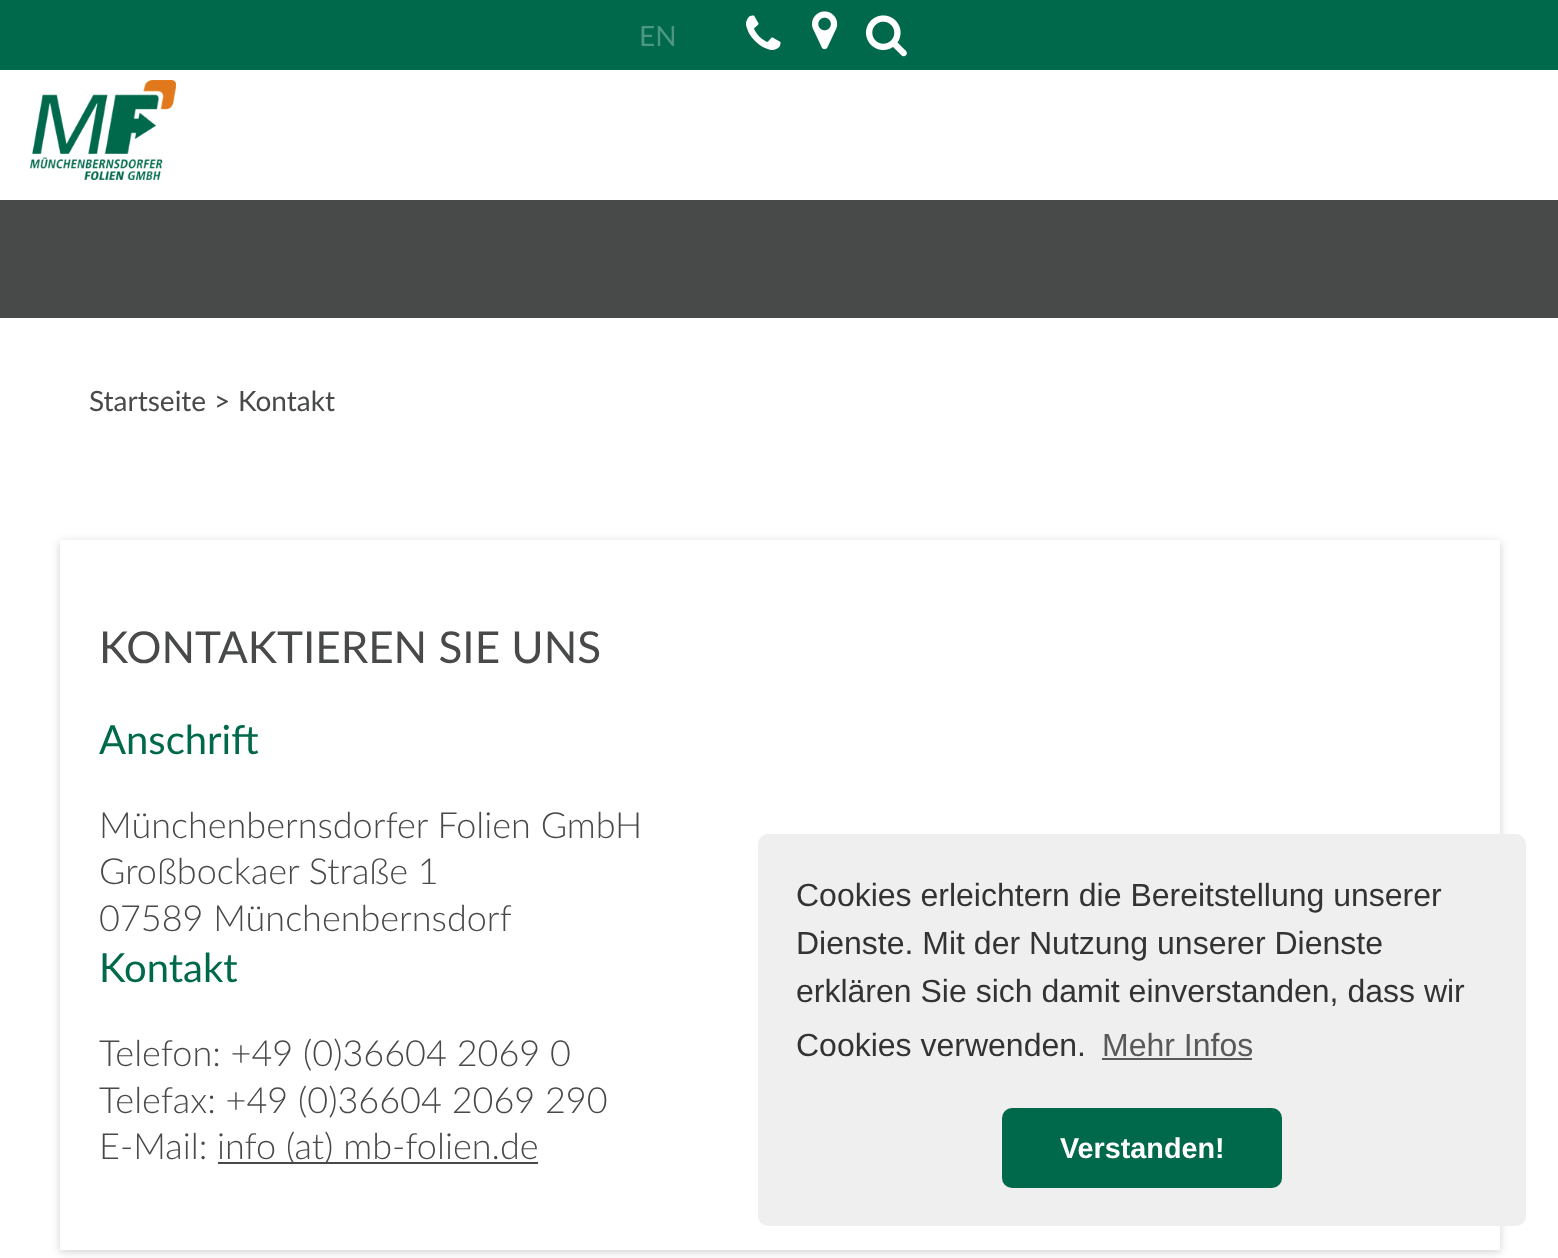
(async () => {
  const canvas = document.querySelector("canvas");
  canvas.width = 1558;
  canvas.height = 1258;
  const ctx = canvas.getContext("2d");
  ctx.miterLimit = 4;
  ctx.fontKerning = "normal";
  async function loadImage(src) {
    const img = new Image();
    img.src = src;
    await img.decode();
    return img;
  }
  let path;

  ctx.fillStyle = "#484a49";
  ctx.fillRect(0, 0, 1558, 1258);
  ctx.fillStyle = "#ffffff";
  ctx.fillRect(0, 70, 1558, 130);
  ctx.fillStyle = "#00694c";
  ctx.fillRect(0, 0, 1558, 70);
  ctx.drawImage(await loadImage("img/1.png"), 746, 15, 35, 35);
  ctx.drawImage(await loadImage("img/2.png"), 812, 11, 26, 39);
  ctx.drawImage(await loadImage("img/3.png"), 866, 15, 41, 42);
  ctx.drawImage(await loadImage("img/4.png"), 30, 80, 146, 100);
  ctx.fillStyle = "#ffffff";
  ctx.fillRect(0, 318, 1558, 940);
  ctx.save();
  path = new Path2D("M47 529H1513V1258H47ZM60 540H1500V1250H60Z");
  ctx.clip(path, "evenodd");
  ctx.fillStyle = "rgba(0, 0, 0, 0.18)";
  ctx.filter = "blur(4px)";
  ctx.beginPath();
  ctx.rect(60, 542, 1440, 710);
  ctx.fill();
  ctx.filter = "none";
  ctx.restore();
  ctx.fillStyle = "#484a49";
  ctx.fillRect(218, 1162, 320, 2);
  ctx.fillStyle = "#efefef";
  ctx.beginPath();
  ctx.roundRect(758, 834, 768, 392, 10);
  ctx.fill();
  ctx.fillStyle = "#595959";
  ctx.fillRect(1102, 1058, 150, 2);
  ctx.fillStyle = "#00694c";
  ctx.beginPath();
  ctx.roundRect(1002, 1108, 280, 80, 10);
  ctx.fill();
  ctx.font = "28px Lato";
  ctx.fillStyle = "#4d9682";
  ctx.fillText("EN", 639, 46);
  ctx.fillStyle = "#484a49";
  for (const [text, x, y] of [
    ["Startseite", 89, 411],
    [">", 214, 411],
    ["Kontakt", 238, 411],
  ]) {
    ctx.fillText(text, x, y);
  }
  ctx.font = "44px Lato";
  ctx.fillText("KONTAKTIEREN SIE UNS", 99, 663);
  ctx.font = "40px Lato";
  ctx.fillStyle = "#00694c";
  ctx.fillText("Anschrift", 99, 754);
  ctx.font = "300 36px Lato";
  ctx.fillStyle = "#484a49";
  for (const [text, x, y] of [
    ["Münchenbernsdorfer Folien GmbH", 99, 838],
    ["Großbockaer Straße 1", 99, 884],
    ["07589 Münchenbernsdorf", 99, 931],
  ]) {
    ctx.fillText(text, x, y);
  }
  ctx.font = "40px Lato";
  ctx.fillStyle = "#00694c";
  ctx.fillText("Kontakt", 99, 982);
  ctx.font = "300 36px Lato";
  ctx.fillStyle = "#484a49";
  for (const [text, x, y] of [
    ["Telefon: +49 (0)36604 2069 0", 99, 1066],
    ["Telefax: +49 (0)36604 2069 290", 99, 1113],
    ["E-Mail:", 99, 1159],
    ["info (at) mb-folien.de", 217, 1159],
  ]) {
    ctx.fillText(text, x, y);
  }
  ctx.font = "32px Liberation Sans";
  ctx.fillStyle = "#333333";
  for (const [text, x, y] of [
    ["Cookies erleichtern die Bereitstellung unserer", 796, 906],
    ["Dienste. Mit der Nutzung unserer Dienste", 796, 954],
    ["erklären Sie sich damit einverstanden, dass wir", 796, 1002],
    ["Cookies verwenden.", 796, 1056],
  ]) {
    ctx.fillText(text, x, y);
  }
  ctx.fillStyle = "#595959";
  ctx.fillText("Mehr Infos", 1102, 1056);
  ctx.font = "bold 28.75px Liberation Sans";
  ctx.fillStyle = "#ffffff";
  ctx.fillText("Verstanden!", 1060, 1158);
})();
